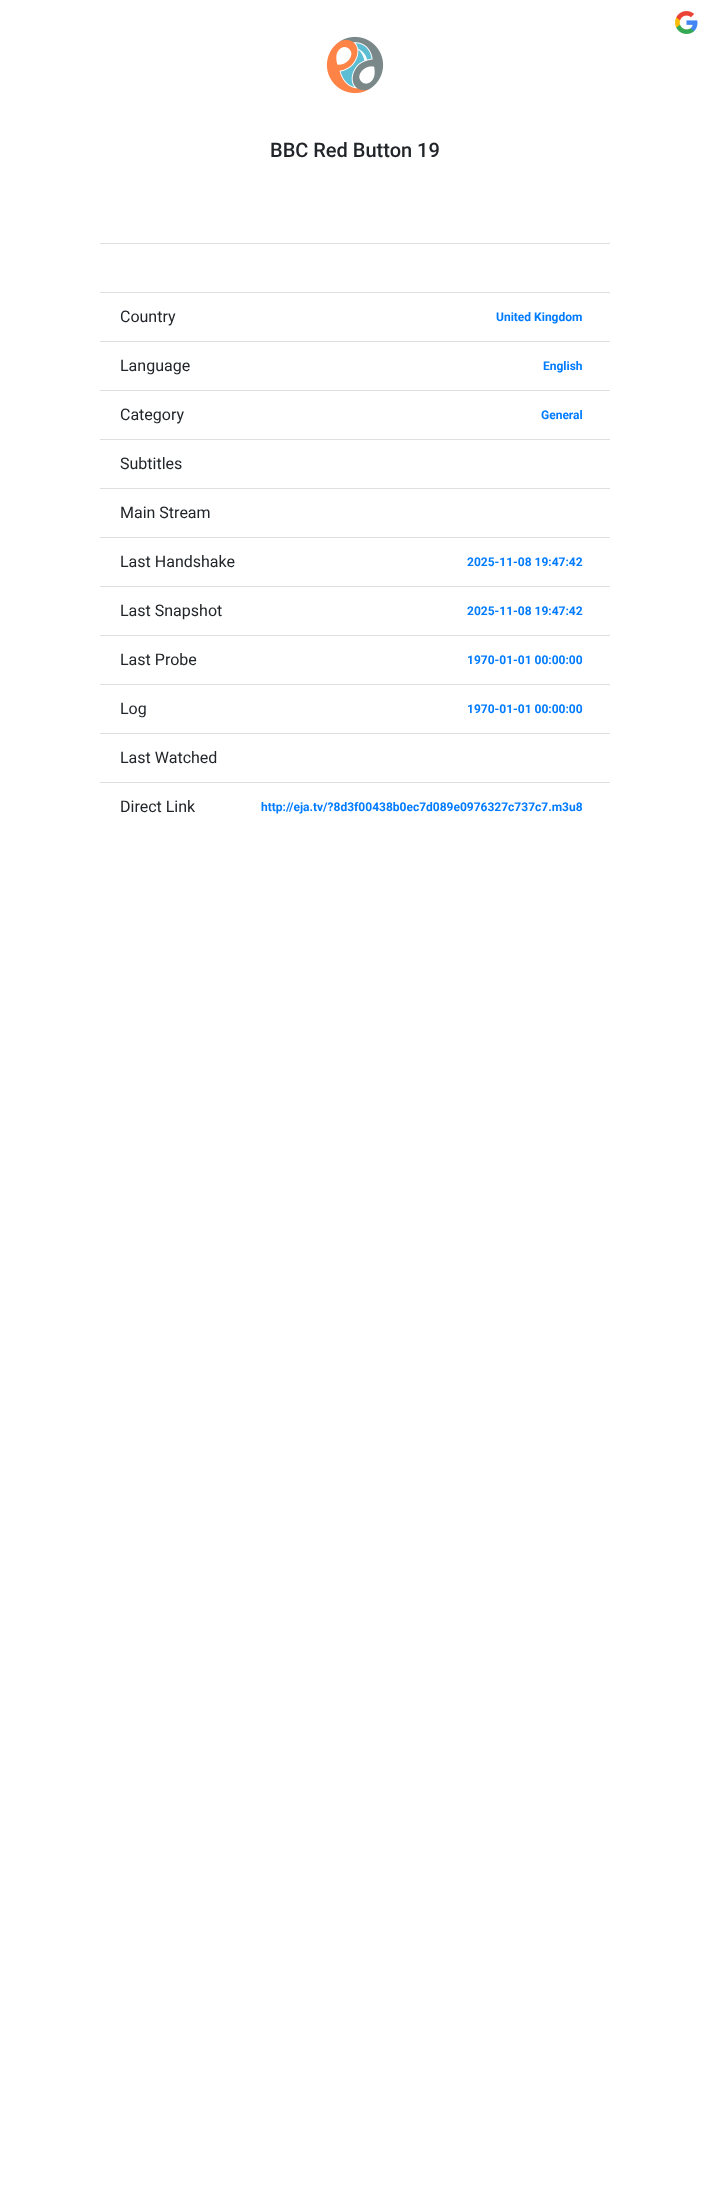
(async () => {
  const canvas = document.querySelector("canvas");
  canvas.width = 709;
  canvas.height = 2203;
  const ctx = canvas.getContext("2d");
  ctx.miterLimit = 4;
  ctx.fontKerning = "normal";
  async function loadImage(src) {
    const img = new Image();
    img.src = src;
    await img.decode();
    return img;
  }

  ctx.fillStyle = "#ffffff";
  ctx.fillRect(0, 0, 709, 2203);
  ctx.drawImage(await loadImage("img/1.png"), 675, 11, 23, 23);
  ctx.drawImage(await loadImage("img/2.png"), 326, 36, 58, 58);
  for (const [x, y, w, h, color] of [
    [100, 243, 510, 1, "#dfdfdf"],
    [100, 292, 510, 1, "#dfdfdf"],
    [100, 341, 510, 1, "#dfdfdf"],
    [100, 390, 510, 1, "#dfdfdf"],
    [100, 439, 510, 1, "#dfdfdf"],
    [100, 488, 510, 1, "#dfdfdf"],
    [100, 537, 510, 1, "#dfdfdf"],
    [100, 586, 510, 1, "#dfdfdf"],
    [100, 635, 510, 1, "#dfdfdf"],
    [100, 684, 510, 1, "#dfdfdf"],
    [100, 733, 510, 1, "#dfdfdf"],
    [100, 782, 510, 1, "#dfdfdf"],
  ]) {
    ctx.fillStyle = color;
    ctx.fillRect(x, y, w, h);
  }
  ctx.font = "500 20px Roboto";
  ctx.fillStyle = "#212529";
  ctx.fillText("BBC Red Button 19", 270, 157);
  ctx.font = "16px Roboto";
  ctx.fillText("Country", 120, 322);
  ctx.font = "bold 12px Roboto";
  ctx.fillStyle = "#007bff";
  ctx.fillText("United Kingdom", 496, 321);
  ctx.font = "16px Roboto";
  ctx.fillStyle = "#212529";
  ctx.fillText("Language", 120, 371);
  ctx.font = "bold 12px Roboto";
  ctx.fillStyle = "#007bff";
  ctx.fillText("English", 543, 370);
  ctx.font = "16px Roboto";
  ctx.fillStyle = "#212529";
  ctx.fillText("Category", 120, 420);
  ctx.font = "bold 12px Roboto";
  ctx.fillStyle = "#007bff";
  ctx.fillText("General", 541, 419);
  ctx.font = "16px Roboto";
  ctx.fillStyle = "#212529";
  for (const [text, x, y] of [
    ["Subtitles", 120, 469],
    ["Main Stream", 120, 518],
    ["Last Handshake", 120, 567],
  ]) {
    ctx.fillText(text, x, y);
  }
  ctx.font = "bold 12px Roboto";
  ctx.fillStyle = "#007bff";
  ctx.fillText("2025-11-08 19:47:42", 467, 566);
  ctx.font = "16px Roboto";
  ctx.fillStyle = "#212529";
  ctx.fillText("Last Snapshot", 120, 616);
  ctx.font = "bold 12px Roboto";
  ctx.fillStyle = "#007bff";
  ctx.fillText("2025-11-08 19:47:42", 467, 615);
  ctx.font = "16px Roboto";
  ctx.fillStyle = "#212529";
  ctx.fillText("Last Probe", 120, 665);
  ctx.font = "bold 12px Roboto";
  ctx.fillStyle = "#007bff";
  ctx.fillText("1970-01-01 00:00:00", 467, 664);
  ctx.font = "16px Roboto";
  ctx.fillStyle = "#212529";
  ctx.fillText("Log", 120, 714);
  ctx.font = "bold 12px Roboto";
  ctx.fillStyle = "#007bff";
  ctx.fillText("1970-01-01 00:00:00", 467, 713);
  ctx.font = "16px Roboto";
  ctx.fillStyle = "#212529";
  ctx.fillText("Last Watched", 120, 763);
  ctx.fillText("Direct Link", 120, 812);
  ctx.font = "bold 12px Roboto";
  ctx.fillStyle = "#007bff";
  ctx.fillText("http://eja.tv/?8d3f00438b0ec7d089e0976327c737c7.m3u8", 261, 811);
})();
